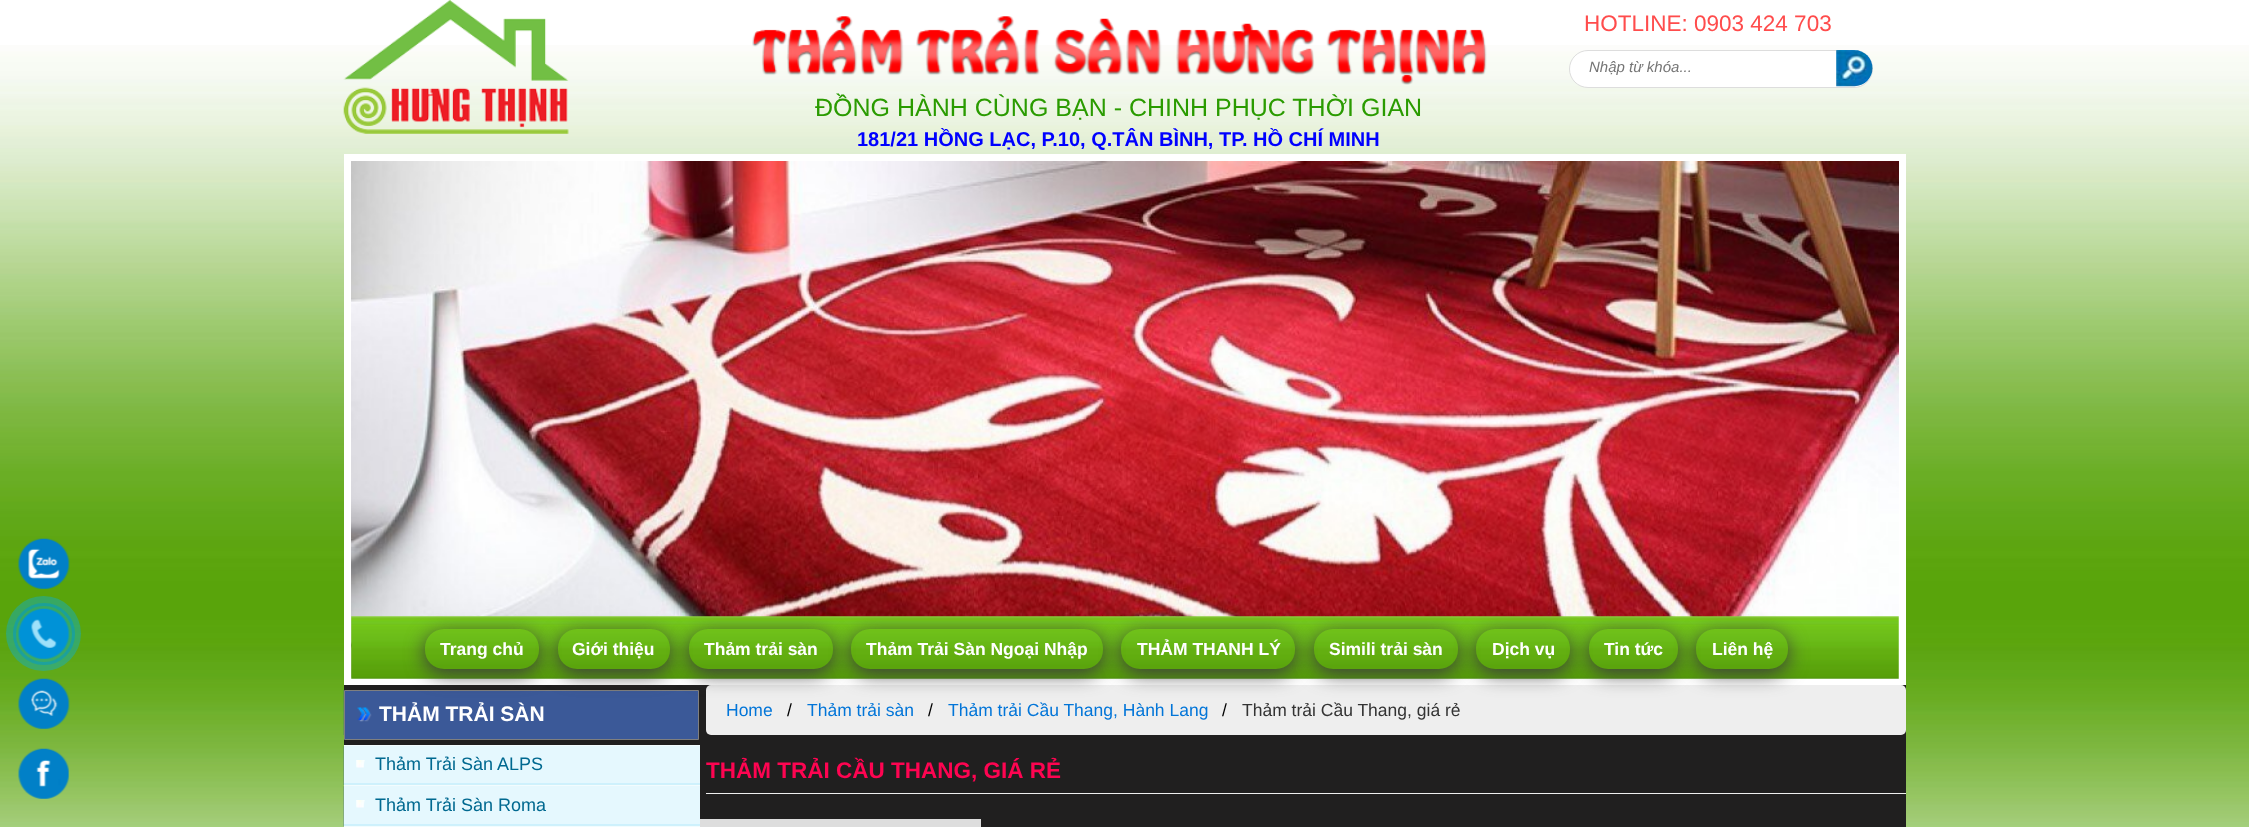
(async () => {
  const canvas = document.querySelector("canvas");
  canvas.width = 2249;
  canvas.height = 827;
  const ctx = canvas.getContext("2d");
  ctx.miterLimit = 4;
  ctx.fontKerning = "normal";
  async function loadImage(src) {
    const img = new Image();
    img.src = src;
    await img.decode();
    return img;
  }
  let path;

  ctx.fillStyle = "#ffffff";
  ctx.fillRect(0, 0, 2249, 827);
  ctx.drawImage(await loadImage("img/1.png"), 0, 45, 2249, 782);
  ctx.drawImage(await loadImage("img/2.png"), 343, 0, 226, 134);
  ctx.beginPath();
  ctx.roundRect(1569.5, 50.5, 303, 37, 18.5);
  ctx.fill();
  ctx.strokeStyle = "#dddddd";
  ctx.stroke();
  ctx.fillStyle = "#efefef";
  ctx.beginPath();
  ctx.roundRect(1836, 50, 37, 36, [0, 18, 18, 0]);
  ctx.fill();
  ctx.drawImage(await loadImage("img/3.png"), 1836, 50, 37, 37);
  ctx.drawImage(await loadImage("img/4.png"), 752, 16, 735, 69);
  ctx.drawImage(await loadImage("img/5.png"), 18, 538, 52, 51);
  ctx.drawImage(await loadImage("img/6.png"), 18, 608, 52, 51);
  ctx.beginPath();
  ctx.arc(44, 634, 29.5, 0, Math.PI * 2);
  ctx.strokeStyle = "rgba(0, 137, 185, 0.5)";
  ctx.lineWidth = 3;
  ctx.stroke();
  ctx.fillStyle = "rgba(0, 175, 242, 0.38)";
  ctx.beginPath();
  ctx.arc(43.5, 633.5, 37.5, 0, Math.PI * 2);
  ctx.fill();
  ctx.drawImage(await loadImage("img/7.png"), 18, 678, 52, 51);
  ctx.drawImage(await loadImage("img/8.png"), 18, 748, 51, 51);
  ctx.strokeStyle = "#ffffff";
  ctx.lineWidth = 8;
  ctx.strokeRect(348, 158, 1554, 523);
  ctx.drawImage(await loadImage("img/9.png"), 351, 161, 1548, 517);
  ctx.drawImage(await loadImage("img/10.png"), 351, 616, 1548, 63);
  ctx.fillStyle = "#201f1f";
  ctx.fillRect(344, 685, 1562, 142);
  ctx.fillStyle = "#3b5998";
  ctx.beginPath();
  ctx.rect(344.5, 690.5, 354, 49);
  ctx.fill();
  ctx.strokeStyle = "#7f7f7f";
  ctx.lineWidth = 1;
  ctx.stroke();
  ctx.save();
  path = new Path2D("M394 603H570V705H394ZM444 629H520C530.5 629 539 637.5 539 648V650C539 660.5 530.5 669 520 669H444C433.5 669 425 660.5 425 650V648C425 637.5 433.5 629 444 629Z");
  ctx.clip(path, "evenodd");
  ctx.fillStyle = "#3b3b3b";
  ctx.filter = "blur(10px)";
  ctx.beginPath();
  ctx.roundRect(425, 634, 114, 40, 19);
  ctx.fill();
  ctx.filter = "none";
  ctx.restore();
  ctx.save();
  path = new Path2D("M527 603H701V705H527ZM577 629H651C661.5 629 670 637.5 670 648V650C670 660.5 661.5 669 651 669H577C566.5 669 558 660.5 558 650V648C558 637.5 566.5 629 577 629Z");
  ctx.clip(path, "evenodd");
  ctx.fillStyle = "#3b3b3b";
  ctx.filter = "blur(10px)";
  ctx.beginPath();
  ctx.roundRect(558, 634, 112, 40, 19);
  ctx.fill();
  ctx.filter = "none";
  ctx.restore();
  ctx.fillStyle = "#eeeeee";
  ctx.beginPath();
  ctx.roundRect(706, 685, 1200, 50, 5);
  ctx.fill();
  ctx.save();
  path = new Path2D("M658 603H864V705H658ZM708 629H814C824.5 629 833 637.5 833 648V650C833 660.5 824.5 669 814 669H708C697.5 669 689 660.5 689 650V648C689 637.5 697.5 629 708 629Z");
  ctx.clip(path, "evenodd");
  ctx.fillStyle = "#3b3b3b";
  ctx.filter = "blur(10px)";
  ctx.beginPath();
  ctx.roundRect(689, 634, 144, 40, 19);
  ctx.fill();
  ctx.filter = "none";
  ctx.restore();
  ctx.save();
  path = new Path2D("M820 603H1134V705H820ZM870 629H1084C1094.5 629 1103 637.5 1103 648V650C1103 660.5 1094.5 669 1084 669H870C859.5 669 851 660.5 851 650V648C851 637.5 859.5 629 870 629Z");
  ctx.clip(path, "evenodd");
  ctx.fillStyle = "#3b3b3b";
  ctx.filter = "blur(10px)";
  ctx.beginPath();
  ctx.roundRect(851, 634, 252, 40, 19);
  ctx.fill();
  ctx.filter = "none";
  ctx.restore();
  ctx.save();
  path = new Path2D("M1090 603H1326V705H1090ZM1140 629H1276C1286.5 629 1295 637.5 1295 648V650C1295 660.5 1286.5 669 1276 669H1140C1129.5 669 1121 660.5 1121 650V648C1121 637.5 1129.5 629 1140 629Z");
  ctx.clip(path, "evenodd");
  ctx.fillStyle = "#3b3b3b";
  ctx.filter = "blur(10px)";
  ctx.beginPath();
  ctx.roundRect(1121, 634, 174, 40, 19);
  ctx.fill();
  ctx.filter = "none";
  ctx.restore();
  ctx.save();
  path = new Path2D("M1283 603H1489V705H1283ZM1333 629H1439C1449.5 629 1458 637.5 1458 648V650C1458 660.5 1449.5 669 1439 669H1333C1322.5 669 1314 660.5 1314 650V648C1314 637.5 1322.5 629 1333 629Z");
  ctx.clip(path, "evenodd");
  ctx.fillStyle = "#3b3b3b";
  ctx.filter = "blur(10px)";
  ctx.beginPath();
  ctx.roundRect(1314, 634, 144, 40, 19);
  ctx.fill();
  ctx.filter = "none";
  ctx.restore();
  ctx.save();
  path = new Path2D("M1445 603H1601V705H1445ZM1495 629H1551C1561.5 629 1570 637.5 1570 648V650C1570 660.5 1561.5 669 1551 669H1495C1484.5 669 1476 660.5 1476 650V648C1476 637.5 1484.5 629 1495 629Z");
  ctx.clip(path, "evenodd");
  ctx.fillStyle = "#3b3b3b";
  ctx.filter = "blur(10px)";
  ctx.beginPath();
  ctx.roundRect(1476, 634, 94, 40, 19);
  ctx.fill();
  ctx.filter = "none";
  ctx.restore();
  ctx.save();
  path = new Path2D("M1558 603H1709V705H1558ZM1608 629H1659C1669.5 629 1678 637.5 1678 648V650C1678 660.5 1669.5 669 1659 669H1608C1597.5 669 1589 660.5 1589 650V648C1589 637.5 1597.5 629 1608 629Z");
  ctx.clip(path, "evenodd");
  ctx.fillStyle = "#3b3b3b";
  ctx.filter = "blur(10px)";
  ctx.beginPath();
  ctx.roundRect(1589, 634, 89, 40, 19);
  ctx.fill();
  ctx.filter = "none";
  ctx.restore();
  ctx.save();
  path = new Path2D("M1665 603H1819V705H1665ZM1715 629H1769C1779.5 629 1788 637.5 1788 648V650C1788 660.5 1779.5 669 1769 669H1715C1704.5 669 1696 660.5 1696 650V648C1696 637.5 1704.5 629 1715 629Z");
  ctx.clip(path, "evenodd");
  ctx.fillStyle = "#3b3b3b";
  ctx.filter = "blur(10px)";
  ctx.beginPath();
  ctx.roundRect(1696, 634, 92, 40, 19);
  ctx.fill();
  ctx.filter = "none";
  ctx.restore();
  ctx.drawImage(await loadImage("img/11.png"), 343, 690, 1, 45);
  ctx.drawImage(await loadImage("img/12.png"), 357, 707, 15, 15);
  ctx.drawImage(await loadImage("img/13.png"), 343, 746, 1, 39);
  for (const [x, y, w, h, color] of [
    [344, 745, 356, 1, "#f2fcfe"],
    [344, 784, 356, 1, "#cff1fb"],
    [344, 746, 356, 37, "#e5f8fe"],
    [344, 783, 356, 1, "#cdf1fd"],
  ]) {
    ctx.fillStyle = color;
    ctx.fillRect(x, y, w, h);
  }
  ctx.drawImage(await loadImage("img/14.png"), 356, 760, 9, 8);
  ctx.drawImage(await loadImage("img/15.png"), 343, 786, 1, 41);
  for (const [x, y, w, h, color] of [
    [344, 785, 356, 1, "#f2fcfe"],
    [344, 825, 356, 1, "#cff1fb"],
    [344, 786, 356, 38, "#e5f8fe"],
    [344, 824, 356, 1, "#cdf1fd"],
  ]) {
    ctx.fillStyle = color;
    ctx.fillRect(x, y, w, h);
  }
  ctx.drawImage(await loadImage("img/14.png"), 356, 800, 9, 8);
  for (const [x, y, w, h, color] of [
    [344, 826, 356, 1, "#f2fcfe"],
    [706, 793, 1200, 1, "#eeeeee"],
    [700, 819, 281, 8, "#dddddd"],
  ]) {
    ctx.fillStyle = color;
    ctx.fillRect(x, y, w, h);
  }
  ctx.font = "22.5px Liberation Sans";
  ctx.fillStyle = "#ff4c4c";
  ctx.fillText("HOTLINE: 0903 424 703", 1584, 31);
  ctx.font = "italic 15px Liberation Sans";
  ctx.fillStyle = "#757575";
  ctx.fillText("Nhập từ khóa...", 1589, 72);
  ctx.font = "25px Liberation Sans";
  ctx.fillStyle = "#2a9b00";
  ctx.fillText("ĐỒNG HÀNH CÙNG BẠN - CHINH PHỤC THỜI GIAN", 815, 116);
  ctx.font = "bold 20px Liberation Sans";
  ctx.fillStyle = "#0000ff";
  ctx.fillText("181/21 HỒNG LẠC, P.10, Q.TÂN BÌNH, TP. HỒ CHÍ MINH", 857, 146);
  ctx.font = "bold 17.5px Liberation Sans";
  ctx.fillStyle = "#ffffff";
  for (const [text, x, y] of [
    ["Trang chủ", 440, 655],
    ["Giới thiệu", 572, 655],
    ["Thảm trải sàn", 704, 655],
    ["Thảm Trải Sàn Ngoại Nhập", 866, 655],
    ["THẢM THANH LÝ", 1137, 655],
    ["Simili trải sàn", 1329, 655],
    ["Dịch vụ", 1492, 655],
    ["Tin tức", 1604, 655],
    ["Liên hệ", 1712, 655],
  ]) {
    ctx.fillText(text, x, y);
  }
  ctx.font = "bold 21px Liberation Sans";
  ctx.fillText("THẢM TRẢI SÀN", 379, 721);
  ctx.font = "18px Liberation Sans";
  ctx.fillStyle = "#006990";
  ctx.fillText("Thảm Trải Sàn ALPS", 375, 770);
  ctx.fillText("Thảm Trải Sàn Roma", 375, 811);
  ctx.font = "17.5px Liberation Sans";
  ctx.fillStyle = "#0275d8";
  ctx.fillText("Home", 726, 716);
  ctx.fillStyle = "#000000";
  ctx.fillText("/", 787, 716);
  ctx.fillStyle = "#0275d8";
  ctx.fillText("Thảm trải sàn", 807, 716);
  ctx.fillStyle = "#000000";
  ctx.fillText("/", 928, 716);
  ctx.fillStyle = "#0275d8";
  ctx.fillText("Thảm trải Cầu Thang, Hành Lang", 948, 716);
  ctx.fillStyle = "#000000";
  ctx.fillText("/", 1222, 716);
  ctx.fillStyle = "#333333";
  ctx.fillText("Thảm trải Cầu Thang, giá rẻ", 1242, 716);
  ctx.font = "bold 22.5px Liberation Sans";
  ctx.fillStyle = "#fe0451";
  ctx.fillText("THẢM TRẢI CẦU THANG, GIÁ RẺ", 706, 778);
})();
